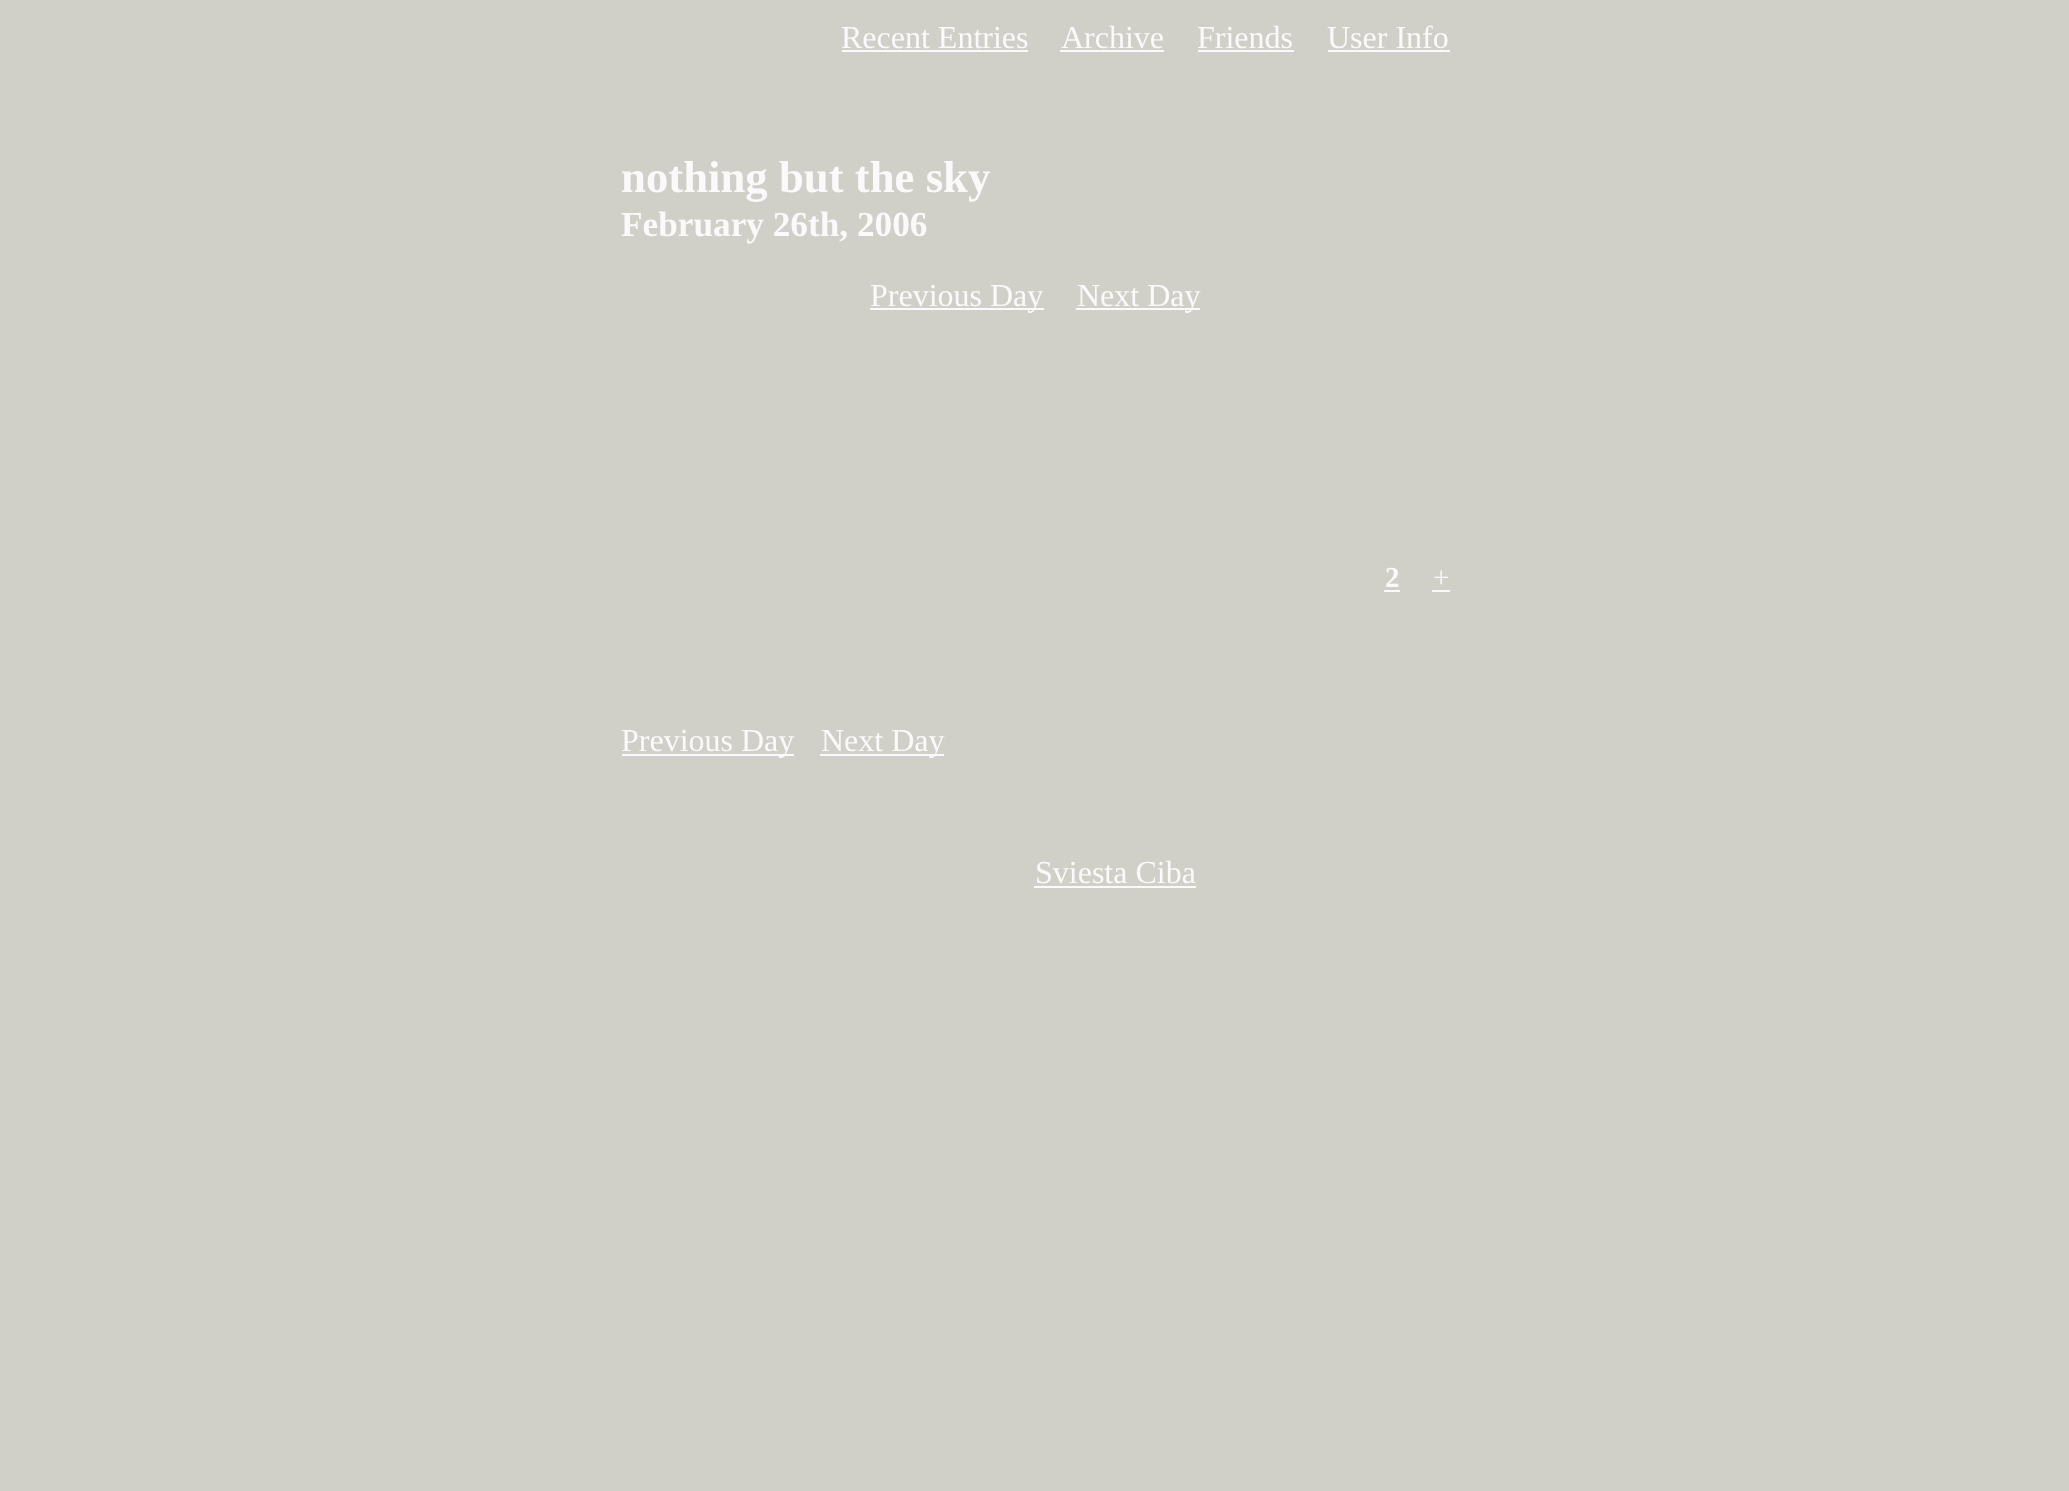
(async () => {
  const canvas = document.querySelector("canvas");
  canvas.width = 2069;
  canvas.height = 1491;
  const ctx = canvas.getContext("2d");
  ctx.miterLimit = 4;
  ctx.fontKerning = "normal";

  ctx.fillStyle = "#d0d0c9";
  ctx.fillRect(0, 0, 2069, 1491);
  for (const [x, y, w, h, color] of [
    [842, 50, 186, 2, "#fbf9fa"],
    [1060, 50, 104, 2, "#fbf9fa"],
    [1198, 50, 96, 2, "#fbf9fa"],
    [1328, 50, 122, 2, "#fbf9fa"],
    [870, 308, 174, 2, "#fbf9fa"],
    [1076, 308, 124, 2, "#fbf9fa"],
    [1384, 590, 16, 2, "#fbf9fa"],
    [1432, 590, 18, 2, "#fbf9fa"],
    [622, 754, 172, 2, "#fbf9fa"],
    [820, 754, 124, 2, "#fbf9fa"],
    [1034, 886, 162, 2, "#fbf9fa"],
  ]) {
    ctx.fillStyle = color;
    ctx.fillRect(x, y, w, h);
  }
  ctx.font = "32px Liberation Serif";
  for (const [text, x, y] of [
    ["Recent Entries", 841, 48],
    ["Archive", 1061, 48],
    ["Friends", 1197, 48],
    ["User Info", 1327, 48],
  ]) {
    ctx.fillText(text, x, y);
  }
  ctx.font = "bold 44.75px Liberation Serif";
  ctx.fillText("nothing but the sky", 621, 192);
  ctx.font = "bold 35.25px Liberation Serif";
  ctx.fillText("February 26th, 2006", 621, 236);
  ctx.font = "32px Liberation Serif";
  ctx.fillText("Previous Day", 870, 306);
  ctx.fillText("Next Day", 1077, 306);
  ctx.font = "bold 29px Liberation Serif";
  ctx.fillText("2", 1385, 587);
  ctx.font = "29px Liberation Serif";
  ctx.fillText("+", 1433, 587);
  ctx.font = "32px Liberation Serif";
  for (const [text, x, y] of [
    ["Previous Day", 621, 751],
    ["Next Day", 821, 751],
    ["Sviesta Ciba", 1035, 883],
  ]) {
    ctx.fillText(text, x, y);
  }
})();
